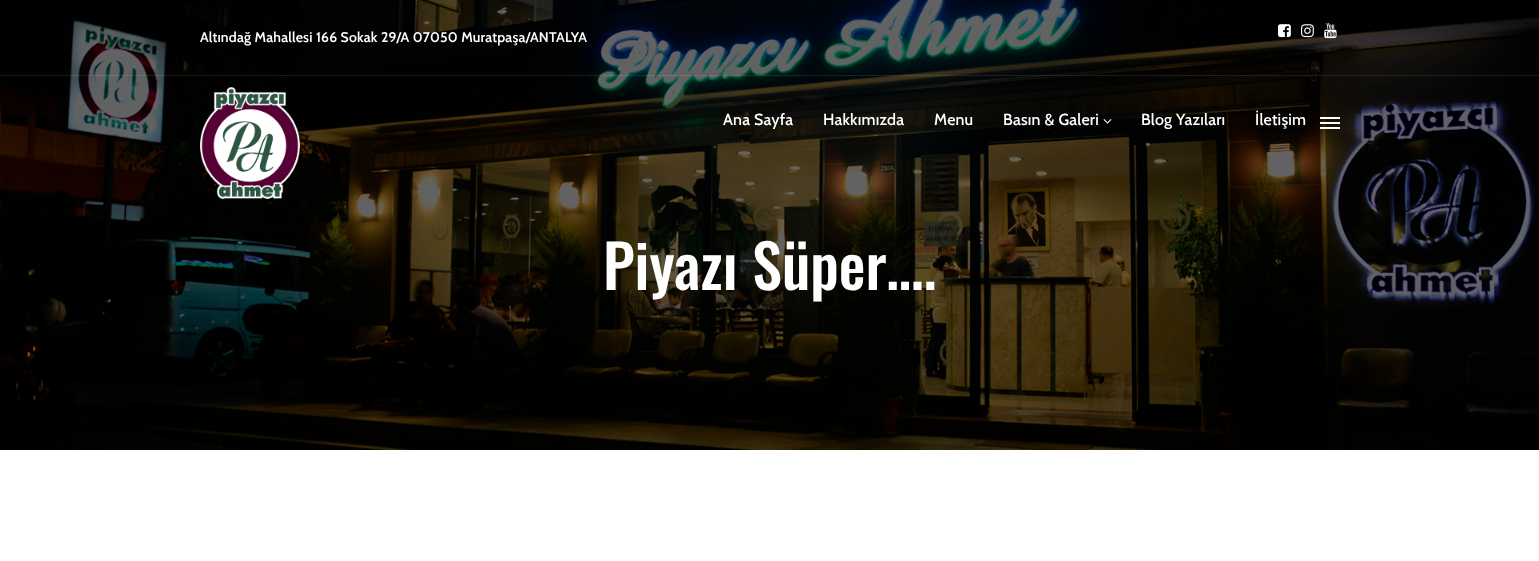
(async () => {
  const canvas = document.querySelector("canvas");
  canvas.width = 1539;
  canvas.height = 561;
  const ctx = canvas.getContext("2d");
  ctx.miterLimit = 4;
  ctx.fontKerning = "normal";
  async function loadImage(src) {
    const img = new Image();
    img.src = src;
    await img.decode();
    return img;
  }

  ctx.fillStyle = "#ffffff";
  ctx.fillRect(0, 0, 1539, 561);
  ctx.drawImage(await loadImage("img/7.png"), 0, 0, 1539, 450);
  ctx.fillStyle = "rgba(255, 255, 255, 0.1)";
  ctx.fillRect(0, 75, 1539, 1);
  ctx.drawImage(await loadImage("img/1.png"), 1278, 24, 13, 14);
  ctx.drawImage(await loadImage("img/2.png"), 1301, 24, 13, 14);
  ctx.drawImage(await loadImage("img/3.png"), 1324, 23, 13, 16);
  ctx.drawImage(await loadImage("img/4.png"), 200, 87, 100, 112);
  ctx.drawImage(await loadImage("img/5.png"), 1103, 119, 9, 5);
  ctx.drawImage(await loadImage("img/6.png"), 1320, 117, 20, 12);
  ctx.letterSpacing = "0.2px";
  ctx.font = "600 14px Cabin";
  ctx.fillStyle = "#ffffff";
  ctx.fillText("Altındağ Mahallesi 166 Sokak 29/A 07050 Muratpaşa/ANTALYA", 200, 42);
  ctx.font = "500 16px Cabin";
  for (const [text, x, y] of [
    ["Ana Sayfa", 723, 125],
    ["Hakkımızda", 823, 125],
    ["Menu", 934, 125],
    ["Basın & Galeri", 1003, 125],
    ["Blog Yazıları", 1141, 125],
    ["İletişim", 1255, 125],
  ]) {
    ctx.fillText(text, x, y);
  }
  ctx.letterSpacing = "0px";
  ctx.font = "500 60px Oswald";
  ctx.fillText("Piyazı Süper….", 603, 290);
})();
